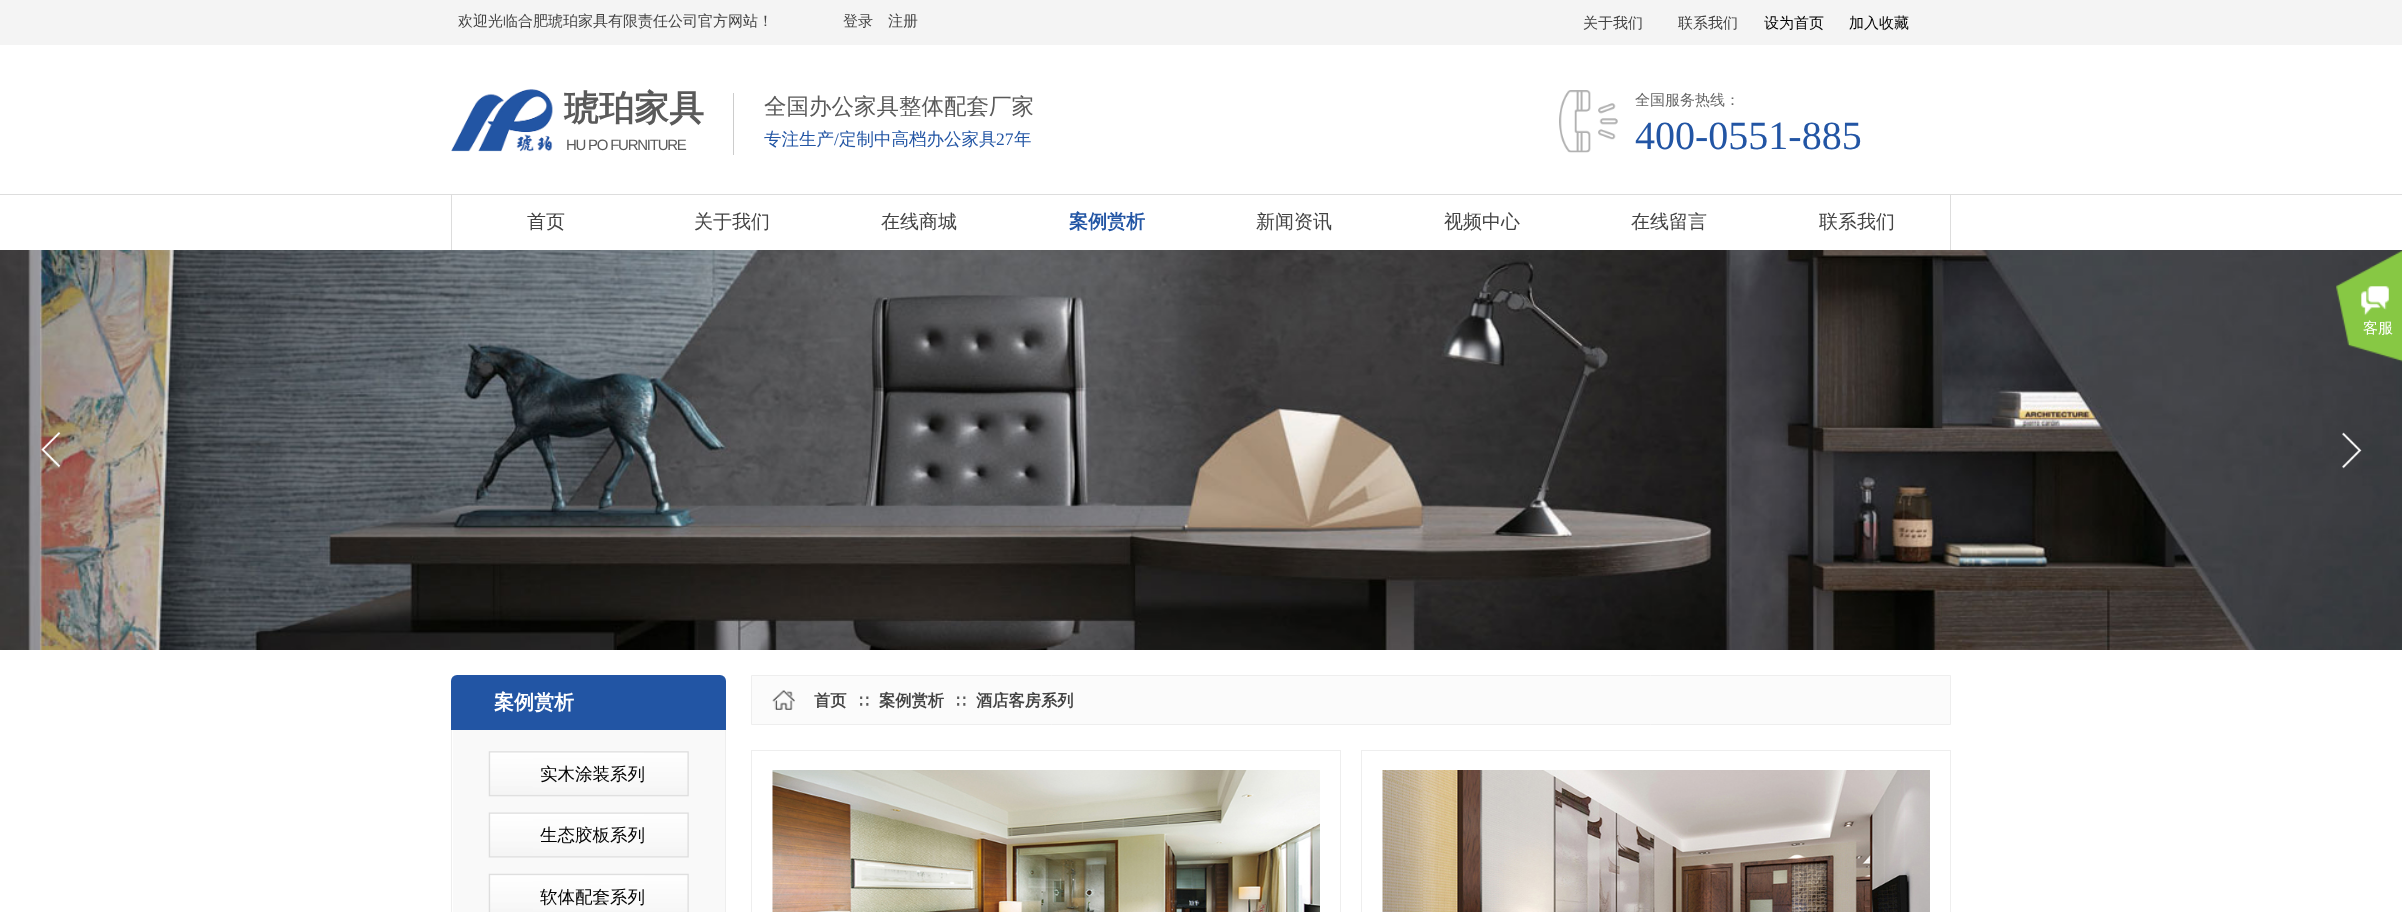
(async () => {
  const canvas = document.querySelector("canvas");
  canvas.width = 2402;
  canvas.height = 912;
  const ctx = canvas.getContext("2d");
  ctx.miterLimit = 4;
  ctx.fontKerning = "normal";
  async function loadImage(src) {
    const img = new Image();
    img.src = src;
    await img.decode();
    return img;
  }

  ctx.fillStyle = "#ffffff";
  ctx.fillRect(0, 0, 2402, 912);
  ctx.fillStyle = "#f4f4f4";
  ctx.fillRect(0, 0, 2402, 45);
  ctx.drawImage(await loadImage("img/1.png"), 451, 89, 102, 63);
  ctx.fillStyle = "#cccccc";
  ctx.fillRect(733, 93, 1, 62);
  ctx.drawImage(await loadImage("img/2.png"), 1559, 90, 59, 63);
  for (const [x, y, w, h, color] of [
    [0, 194, 2402, 1, "#dddddd"],
    [1950, 194, 1, 56, "#dddddd"],
    [451, 194, 1, 56, "#dddddd"],
  ]) {
    ctx.fillStyle = color;
    ctx.fillRect(x, y, w, h);
  }
  ctx.drawImage(await loadImage("img/3.png"), 0, 250, 2402, 400);
  ctx.drawImage(await loadImage("img/4.png"), 41, 431, 20, 37);
  ctx.drawImage(await loadImage("img/5.png"), 2342, 432, 20, 37);
  for (const [x, y, w, h, color] of [
    [453, 730, 272, 182, "#f9f9f9"],
    [725, 730, 1, 182, "#eeeeee"],
    [451, 730, 1, 182, "#eeeeee"],
  ]) {
    ctx.fillStyle = color;
    ctx.fillRect(x, y, w, h);
  }
  ctx.fillStyle = "#2255a4";
  ctx.beginPath();
  ctx.roundRect(451, 675, 275, 55, [6, 6, 0, 0]);
  ctx.fill();
  ctx.drawImage(await loadImage("img/6.png"), 488, 751, 201, 46);
  ctx.drawImage(await loadImage("img/7.png"), 488, 812, 201, 46);
  ctx.drawImage(await loadImage("img/8.png"), 488, 873, 201, 39);
  ctx.fillStyle = "#fbfbfb";
  ctx.beginPath();
  ctx.rect(751.5, 675.5, 1199, 49);
  ctx.fill();
  ctx.strokeStyle = "#eeeeee";
  ctx.stroke();
  ctx.drawImage(await loadImage("img/9.png"), 772, 690, 23, 20);
  ctx.strokeRect(751.5, 750.5, 589, 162);
  ctx.drawImage(await loadImage("img/10.png"), 772, 770, 548, 142);
  ctx.strokeRect(1361.5, 750.5, 589, 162);
  ctx.drawImage(await loadImage("img/11.png"), 1382, 770, 548, 142);
  ctx.drawImage(await loadImage("img/12.png"), 2336, 250, 66, 112);
  ctx.font = "500 15px WenQuanYi Zen Hei";
  ctx.fillStyle = "#434343";
  for (const [text, x, y] of [
    ["欢迎光临合肥琥珀家具有限责任公司官方网站！", 458, 26],
    ["登录", 843, 26],
    ["注册", 888, 26],
    ["关于我们", 1583, 28],
    ["联系我们", 1678, 28],
  ]) {
    ctx.fillText(text, x, y);
  }
  ctx.fillStyle = "#000000";
  ctx.fillText("设为首页", 1764, 28);
  ctx.fillText("加入收藏", 1849, 28);
  ctx.font = "bold 35px WenQuanYi Zen Hei";
  ctx.fillStyle = "#5a5a5a";
  ctx.fillText("琥珀家具", 564, 120);
  ctx.font = "500 22.5px WenQuanYi Zen Hei";
  ctx.fillText("全国办公家具整体配套厂家", 764, 114);
  ctx.font = "500 15px WenQuanYi Zen Hei";
  ctx.fillStyle = "#666666";
  ctx.fillText("全国服务热线：", 1635, 105);
  ctx.letterSpacing = "-1.25px";
  ctx.font = "15px Liberation Sans";
  ctx.fillStyle = "#5a5a5a";
  ctx.fillText("HU PO FURNITURE", 566, 150);
  ctx.letterSpacing = "0px";
  ctx.font = "500 17.5px WenQuanYi Zen Hei";
  ctx.fillStyle = "#2255a4";
  ctx.fillText("专注生产", 764, 145);
  ctx.font = "17.5px Liberation Serif";
  ctx.fillText("/", 834, 145);
  ctx.font = "500 17.5px WenQuanYi Zen Hei";
  ctx.fillText("定制中高档办公家具", 839, 145);
  ctx.font = "17.5px Liberation Serif";
  ctx.fillText("27", 996, 145);
  ctx.font = "500 17.5px WenQuanYi Zen Hei";
  ctx.fillText("年", 1014, 145);
  ctx.font = "40px Liberation Serif";
  ctx.fillText("400-0551-885", 1635, 149);
  ctx.font = "500 19px WenQuanYi Zen Hei";
  ctx.fillStyle = "#434343";
  for (const [text, x, y] of [
    ["首页", 527, 228],
    ["关于我们", 694, 228],
    ["在线商城", 881, 228],
  ]) {
    ctx.fillText(text, x, y);
  }
  ctx.font = "bold 19px WenQuanYi Zen Hei";
  ctx.fillStyle = "#2255a4";
  ctx.fillText("案例赏析", 1069, 228);
  ctx.font = "500 19px WenQuanYi Zen Hei";
  ctx.fillStyle = "#434343";
  for (const [text, x, y] of [
    ["新闻资讯", 1256, 228],
    ["视频中心", 1444, 228],
    ["在线留言", 1631, 228],
    ["联系我们", 1819, 228],
  ]) {
    ctx.fillText(text, x, y);
  }
  ctx.font = "bold 20px WenQuanYi Zen Hei";
  ctx.fillStyle = "#ffffff";
  ctx.fillText("案例赏析", 494, 709);
  ctx.font = "500 17.5px WenQuanYi Zen Hei";
  ctx.fillStyle = "#000000";
  for (const [text, x, y] of [
    ["实木涂装系列", 540, 780],
    ["生态胶板系列", 540, 841],
    ["软体配套系列", 540, 903],
  ]) {
    ctx.fillText(text, x, y);
  }
  ctx.font = "bold 16.25px WenQuanYi Zen Hei";
  ctx.fillStyle = "#434343";
  ctx.fillText("首页", 814, 706);
  ctx.font = "500 15px WenQuanYi Zen Hei";
  ctx.fillStyle = "#5a5a5a";
  ctx.fillText("∷", 857, 706);
  ctx.font = "bold 16.25px WenQuanYi Zen Hei";
  ctx.fillStyle = "#434343";
  ctx.fillText("案例赏析", 879, 706);
  ctx.font = "500 15px WenQuanYi Zen Hei";
  ctx.fillStyle = "#5a5a5a";
  ctx.fillText("∷", 954, 706);
  ctx.font = "bold 16.25px WenQuanYi Zen Hei";
  ctx.fillStyle = "#434343";
  ctx.fillText("酒店客房系列", 976, 706);
  ctx.font = "500 15px WenQuanYi Zen Hei";
  ctx.fillStyle = "#ffffff";
  ctx.fillText("客服", 2363, 333);
})();
